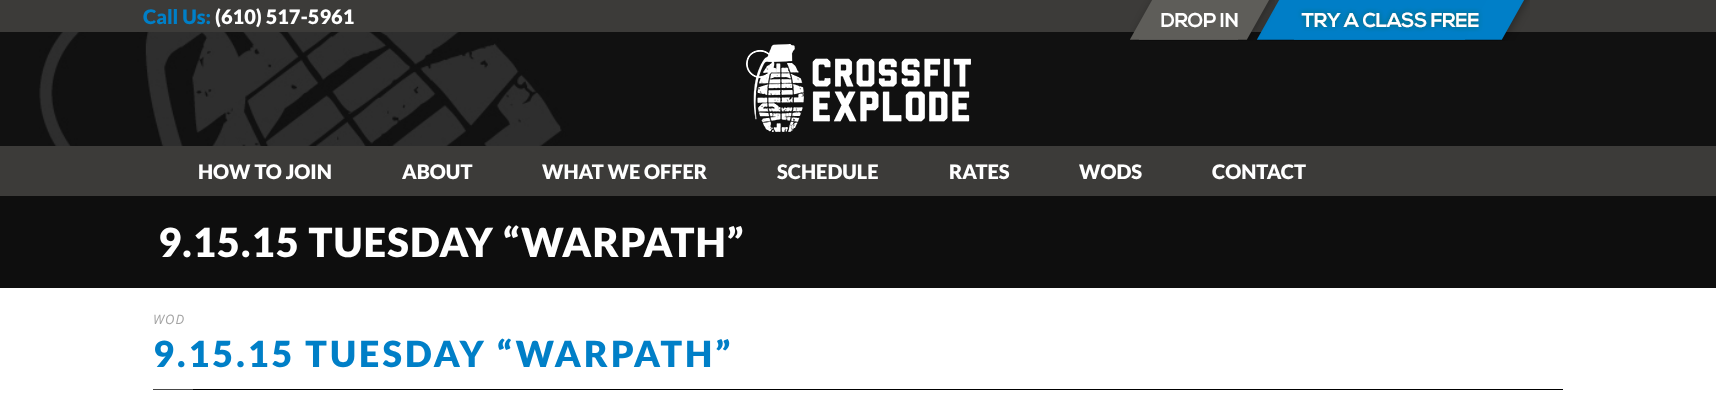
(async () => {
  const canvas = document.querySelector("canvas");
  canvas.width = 1716;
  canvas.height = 406;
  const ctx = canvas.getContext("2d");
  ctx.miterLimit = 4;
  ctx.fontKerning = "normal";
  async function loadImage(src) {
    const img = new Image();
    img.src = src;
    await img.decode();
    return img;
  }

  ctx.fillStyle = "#ffffff";
  ctx.fillRect(0, 0, 1716, 406);
  ctx.fillStyle = "#3c3b39";
  ctx.fillRect(0, 0, 1716, 32);
  ctx.drawImage(await loadImage("img/3.png"), 0, 32, 1716, 114);
  ctx.drawImage(await loadImage("img/2.png"), 1256, 0, 274, 41);
  ctx.drawImage(await loadImage("img/1.png"), 1130, 0, 145, 41);
  ctx.fillRect(0, 146, 1716, 50);
  ctx.drawImage(await loadImage("img/4.png"), 746, 44, 225, 88);
  for (const [x, y, w, h, color] of [
    [0, 196, 1716, 92, "#0e0e0e"],
    [193, 389, 1370, 1, "#000000"],
    [153, 389, 40, 1, "#464646"],
  ]) {
    ctx.fillStyle = color;
    ctx.fillRect(x, y, w, h);
  }
  ctx.font = "900 20px Lato";
  ctx.fillStyle = "#007fc7";
  ctx.fillText("Call Us:", 143, 24);
  ctx.fillStyle = "#ffffff";
  for (const [text, x, y] of [
    ["(610) 517-5961", 215, 24],
    ["HOW TO JOIN", 198, 179],
    ["ABOUT", 402, 179],
    ["WHAT WE OFFER", 542, 179],
    ["SCHEDULE", 777, 179],
    ["RATES", 949, 179],
    ["WODS", 1079, 179],
    ["CONTACT", 1212, 179],
  ]) {
    ctx.fillText(text, x, y);
  }
  ctx.letterSpacing = "1px";
  ctx.font = "900 40px Lato";
  ctx.fillText("9.15.15 TUESDAY “WARPATH”", 158, 257);
  ctx.font = "italic 13px Open Sans";
  ctx.fillStyle = "#a3a3a3";
  ctx.fillText("WOD", 153, 324);
  ctx.letterSpacing = "3px";
  ctx.font = "900 36px Lato";
  ctx.fillStyle = "#007fc7";
  ctx.fillText("9.15.15 TUESDAY “WARPATH”", 153, 367);
})();
